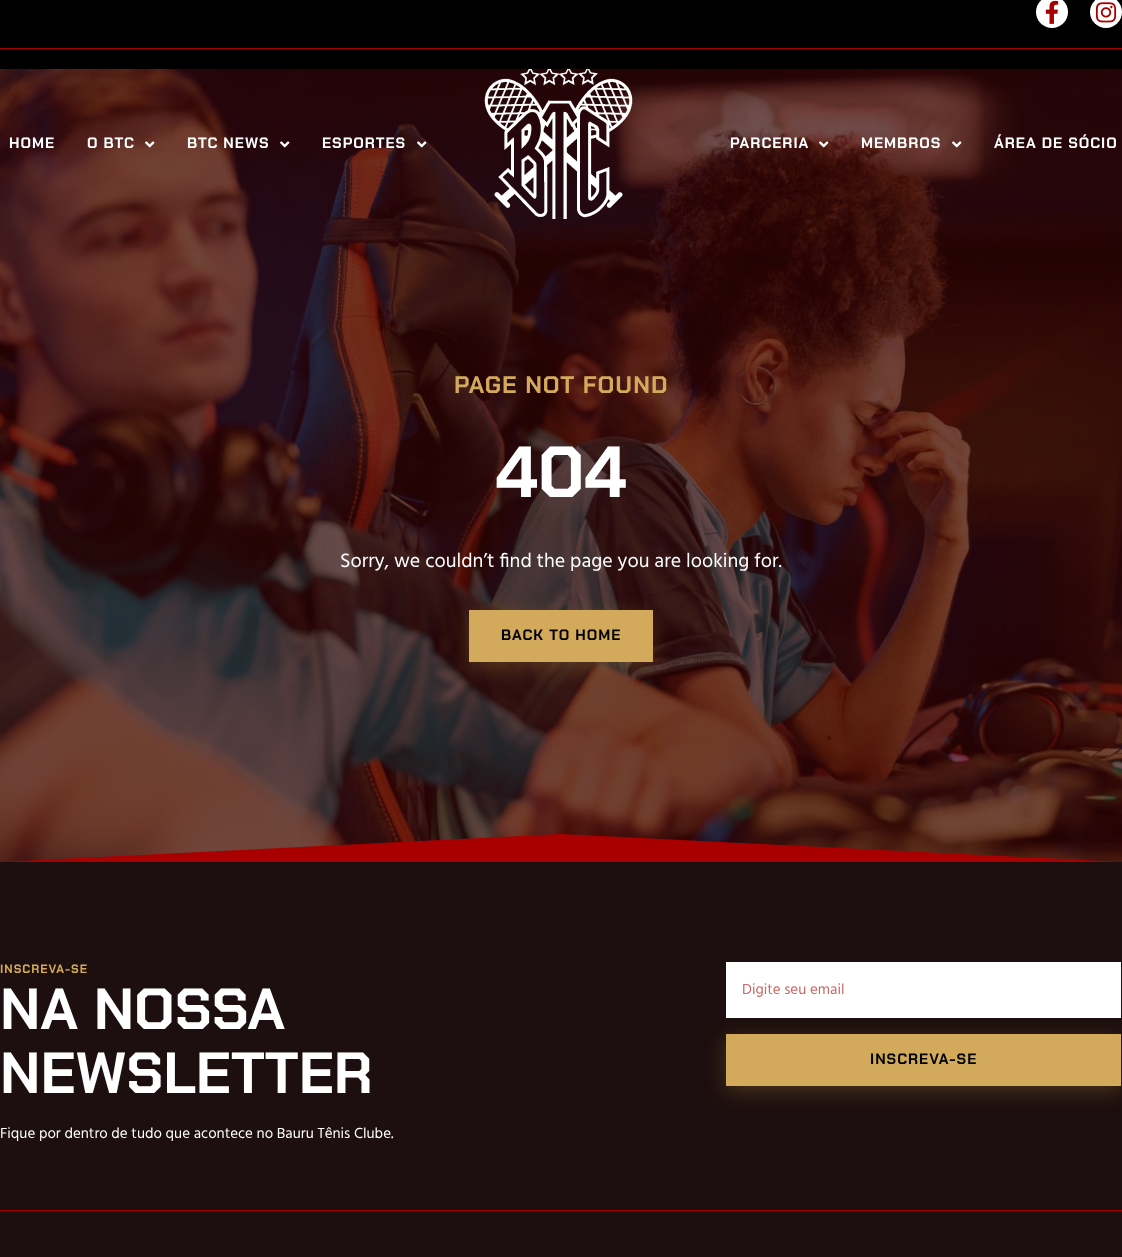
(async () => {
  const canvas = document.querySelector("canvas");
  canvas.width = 1122;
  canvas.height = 1257;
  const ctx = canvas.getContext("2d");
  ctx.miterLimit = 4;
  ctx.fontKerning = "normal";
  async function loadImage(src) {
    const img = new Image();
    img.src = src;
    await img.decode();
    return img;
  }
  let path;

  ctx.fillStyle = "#000000";
  ctx.fillRect(0, 0, 1122, 1257);
  ctx.fillStyle = "#a80000";
  ctx.fillRect(0, 48, 1122, 1);
  ctx.fillStyle = "#ffffff";
  ctx.beginPath();
  ctx.arc(1052, 12, 16, 0, Math.PI * 2);
  ctx.fill();
  ctx.drawImage(await loadImage("img/1.png"), 1045, 0, 14, 24);
  ctx.beginPath();
  ctx.arc(1106, 12, 16, 0, Math.PI * 2);
  ctx.fill();
  ctx.drawImage(await loadImage("img/2.png"), 1095, 2, 22, 21);
  ctx.drawImage(await loadImage("img/9.png"), 0, 69, 1122, 793);
  ctx.drawImage(await loadImage("img/3.png"), 145, 141, 10, 7);
  ctx.drawImage(await loadImage("img/4.png"), 280, 141, 10, 7);
  ctx.drawImage(await loadImage("img/5.png"), 417, 141, 10, 7);
  ctx.drawImage(await loadImage("img/6.png"), 484, 69, 149, 150);
  ctx.drawImage(await loadImage("img/7.png"), 819, 141, 10, 7);
  ctx.drawImage(await loadImage("img/8.png"), 952, 141, 10, 7);
  ctx.fillStyle = "rgba(176, 134, 54, 0.3)";
  ctx.filter = "blur(10px)";
  ctx.beginPath();
  ctx.rect(469, 615, 184, 52);
  ctx.fill();
  ctx.filter = "none";
  ctx.fillStyle = "#d3aa5b";
  ctx.fillRect(469, 610, 184, 52);
  ctx.fillStyle = "#a80000";
  path = new Path2D("M561 834L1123 862V863H-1V862Z");
  ctx.fill(path);
  for (const [x, y, w, h, color] of [
    [0, 862, 1122, 395, "#1d0f0f"],
    [0, 1210, 1122, 1, "#a80000"],
    [726, 962, 395, 56, "#ffffff"],
  ]) {
    ctx.fillStyle = color;
    ctx.fillRect(x, y, w, h);
  }
  ctx.fillStyle = "rgba(176, 134, 54, 0.3)";
  ctx.filter = "blur(10px)";
  ctx.beginPath();
  ctx.rect(726, 1039, 395, 52);
  ctx.fill();
  ctx.filter = "none";
  ctx.fillStyle = "#d3aa5b";
  ctx.fillRect(726, 1034, 395, 52);
  ctx.letterSpacing = "1px";
  ctx.font = "bold 15px Chakra Petch";
  ctx.fillStyle = "#ffffff";
  for (const [text, x, y] of [
    ["HOME", 9, 148],
    ["O BTC", 87, 148],
    ["BTC NEWS", 187, 148],
    ["ESPORTES", 322, 148],
    ["PARCERIA", 730, 148],
    ["MEMBROS", 861, 148],
    ["ÁREA DE SÓCIO", 994, 148],
  ]) {
    ctx.fillText(text, x, y);
  }
  ctx.font = "bold 24px Chakra Petch";
  ctx.fillStyle = "#d3aa5b";
  ctx.fillText("PAGE NOT FOUND", 454, 393);
  ctx.letterSpacing = "0px";
  ctx.font = "bold 72px Chakra Petch";
  ctx.fillStyle = "#ffffff";
  ctx.fillText("404", 496, 497);
  ctx.font = "20px Hind";
  ctx.fillText("Sorry, we couldn’t find the page you are looking for.", 340, 567);
  ctx.letterSpacing = "1px";
  ctx.font = "bold 15px Chakra Petch";
  ctx.fillStyle = "#000000";
  ctx.fillText("BACK TO HOME", 501, 640);
  ctx.font = "bold 12px Chakra Petch";
  ctx.fillStyle = "#d3aa5b";
  ctx.fillText("INSCREVA-SE", 0, 973);
  ctx.letterSpacing = "0px";
  ctx.font = "bold 58px Chakra Petch";
  ctx.fillStyle = "#ffffff";
  ctx.fillText("NA NOSSA", 0, 1029);
  ctx.fillText("NEWSLETTER", 0, 1093);
  ctx.font = "15px Hind";
  ctx.fillText("Fique por dentro de tudo que acontece no Bauru Tênis Clube.", 0, 1138);
  ctx.fillStyle = "#cb6666";
  ctx.fillText("Digite seu email", 742, 994);
  ctx.letterSpacing = "1px";
  ctx.font = "bold 15px Chakra Petch";
  ctx.fillStyle = "#000000";
  ctx.fillText("INSCREVA-SE", 870, 1064);
})();
